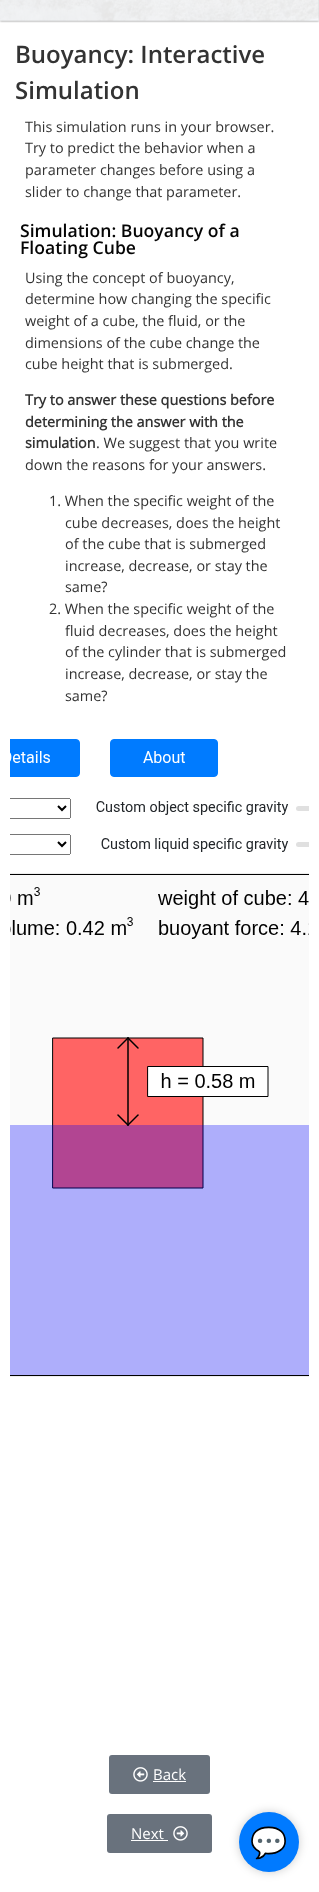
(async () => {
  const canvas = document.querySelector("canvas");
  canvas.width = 319;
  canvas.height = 1892;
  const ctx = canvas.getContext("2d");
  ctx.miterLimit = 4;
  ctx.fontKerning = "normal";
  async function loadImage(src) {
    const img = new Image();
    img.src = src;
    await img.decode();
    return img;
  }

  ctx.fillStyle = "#ffffff";
  ctx.fillRect(0, 0, 319, 1892);
  ctx.drawImage(await loadImage("img/1.png"), 10, 739, 299, 638);
  ctx.fillStyle = "#69727d";
  ctx.beginPath();
  ctx.roundRect(109, 1755, 101, 39, 3);
  ctx.fill();
  ctx.drawImage(await loadImage("img/2.png"), 133, 1767, 15, 15);
  ctx.fillStyle = "#ffffff";
  ctx.fillRect(153, 1781, 33, 1);
  ctx.fillStyle = "#69727d";
  ctx.beginPath();
  ctx.roundRect(107, 1814, 105, 39, 3);
  ctx.fill();
  ctx.fillStyle = "#ffffff";
  ctx.fillRect(131, 1840, 37, 1);
  ctx.drawImage(await loadImage("img/3.png"), 173, 1826, 15, 15);
  ctx.fillStyle = "rgba(0, 0, 0, 0.5)";
  ctx.filter = "blur(1px)";
  ctx.beginPath();
  ctx.rect(0, -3, 319, 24);
  ctx.fill();
  ctx.filter = "none";
  ctx.drawImage(await loadImage("img/4.png"), 0, 0, 319, 21);
  ctx.fillStyle = "rgba(0, 0, 0, 0.2)";
  ctx.filter = "blur(5px)";
  ctx.beginPath();
  ctx.roundRect(239, 1812, 60, 60, 30);
  ctx.fill();
  ctx.filter = "none";
  ctx.fillStyle = "#007aff";
  ctx.beginPath();
  ctx.arc(269, 1842, 30, 0, Math.PI * 2);
  ctx.fill();
  ctx.font = "600 24px Open Sans";
  ctx.fillStyle = "#333333";
  ctx.fillText("Buoyancy: Interactive", 15, 63);
  ctx.fillText("Simulation", 15, 99);
  ctx.font = "14.4px Open Sans";
  for (const [text, x, y] of [
    ["This simulation runs in your browser.", 25, 132],
    ["Try to predict the behavior when a", 25, 153],
    ["parameter changes before using a", 25, 175],
    ["slider to change that parameter.", 25, 197],
  ]) {
    ctx.fillText(text, x, y);
  }
  ctx.font = "600 17.6px Open Sans";
  ctx.fillStyle = "#050505";
  ctx.fillText("Simulation: Buoyancy of a", 20, 237);
  ctx.fillText("Floating Cube", 20, 254);
  ctx.font = "14.4px Open Sans";
  ctx.fillStyle = "#333333";
  for (const [text, x, y] of [
    ["Using the concept of buoyancy,", 25, 283],
    ["determine how changing the specific", 25, 304],
    ["weight of a cube, the fluid, or the", 25, 326],
    ["dimensions of the cube change the", 25, 348],
    ["cube height that is submerged.", 25, 369],
  ]) {
    ctx.fillText(text, x, y);
  }
  ctx.font = "bold 14.4px Open Sans";
  for (const [text, x, y] of [
    ["Try to answer these questions before", 25, 405],
    ["determining the answer with the", 25, 427],
    ["simulation", 25, 448],
  ]) {
    ctx.fillText(text, x, y);
  }
  ctx.font = "14.4px Open Sans";
  for (const [text, x, y] of [
    [". We suggest that you write", 96, 448],
    ["down the reasons for your answers.", 25, 470],
    ["1. When the specific weight of the", 49, 506],
    ["cube decreases, does the height", 65, 528],
    ["of the cube that is submerged", 65, 549],
    ["increase, decrease, or stay the", 65, 571],
    ["same?", 65, 592],
    ["2. When the specific weight of the", 49, 614],
    ["fluid decreases, does the height", 65, 636],
    ["of the cylinder that is submerged", 65, 657],
    ["increase, decrease, or stay the", 65, 679],
    ["same?", 65, 701],
  ]) {
    ctx.fillText(text, x, y);
  }
  ctx.font = "15px Open Sans";
  ctx.fillStyle = "#ffffff";
  ctx.fillText("Back", 153, 1780);
  ctx.fillText("Next", 131, 1839);
  ctx.font = "30px Noto Color Emoji";
  ctx.fillText("💬", 250, 1853);
})();
